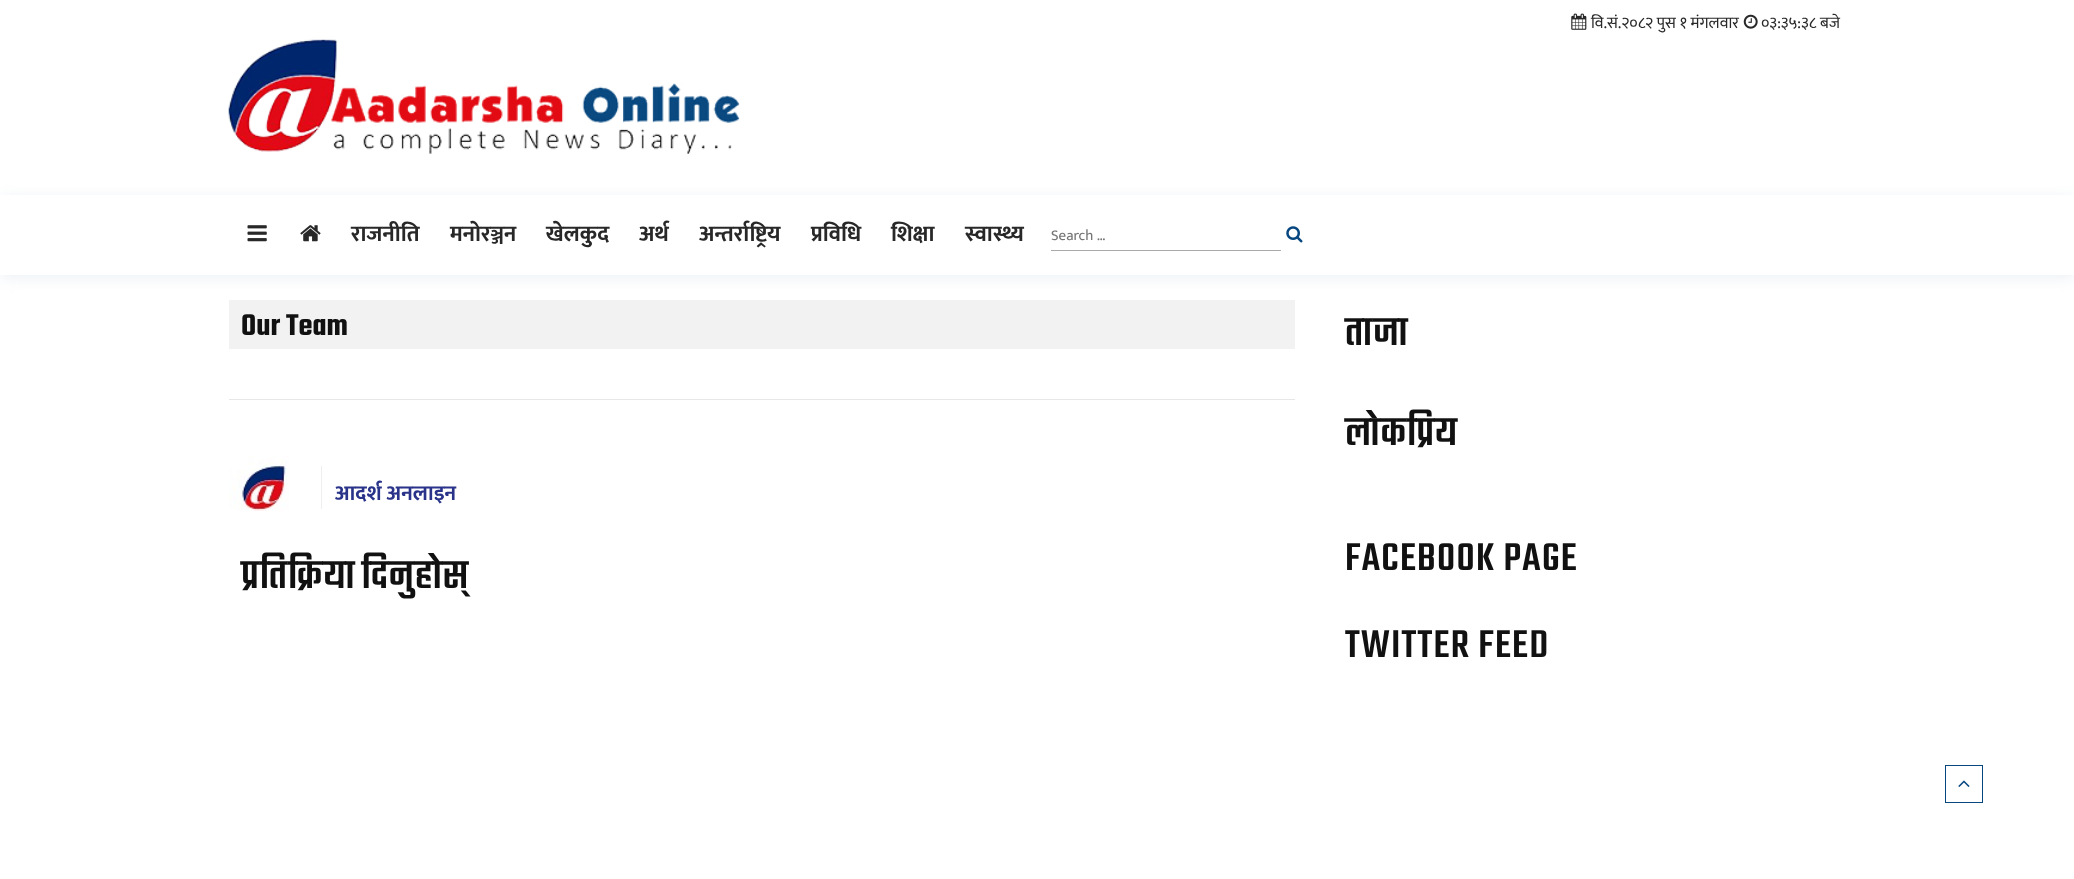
(async () => {
  const canvas = document.querySelector("canvas");
  canvas.width = 2074;
  canvas.height = 879;
  const ctx = canvas.getContext("2d");
  ctx.miterLimit = 4;
  ctx.fontKerning = "normal";
  async function loadImage(src) {
    const img = new Image();
    img.src = src;
    await img.decode();
    return img;
  }
  let path;

  ctx.fillStyle = "#ffffff";
  ctx.fillRect(0, 0, 2074, 879);
  ctx.drawImage(await loadImage("img/1.png"), 1571, 13, 16, 17);
  ctx.drawImage(await loadImage("img/2.png"), 1743, 14, 15, 15);
  ctx.drawImage(await loadImage("img/3.png"), 228, 39, 512, 115);
  ctx.save();
  path = new Path2D("M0 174H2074V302H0ZM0 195H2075V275H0Z");
  ctx.clip(path, "evenodd");
  ctx.fillStyle = "#ecf1f5";
  ctx.filter = "blur(7.5px)";
  ctx.beginPath();
  ctx.rect(0, 198, 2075, 80);
  ctx.fill();
  ctx.filter = "none";
  ctx.restore();
  ctx.drawImage(await loadImage("img/4.png"), 247, 225, 20, 17);
  ctx.drawImage(await loadImage("img/5.png"), 300, 225, 21, 17);
  ctx.fillStyle = "#a9a9a9";
  ctx.fillRect(1051, 250, 230, 1);
  ctx.drawImage(await loadImage("img/6.png"), 1286, 226, 17, 17);
  ctx.fillStyle = "#f2f2f2";
  ctx.fillRect(229, 300, 1066, 49);
  ctx.fillStyle = "#e7e7e7";
  ctx.fillRect(229, 399, 1066, 1);
  ctx.drawImage(await loadImage("img/7.png"), 229, 456, 60, 55);
  ctx.fillStyle = "#eeeeee";
  ctx.fillRect(321, 466, 1, 43);
  ctx.strokeStyle = "#07477f";
  ctx.strokeRect(1945.5, 765.5, 37, 37);
  ctx.drawImage(await loadImage("img/8.png"), 1958, 780, 12, 7);
  ctx.font = "16.25px Mukta";
  ctx.fillStyle = "#282828";
  ctx.fillText("वि.सं.२०८२ पुस १ मंगलवार", 1591, 28);
  ctx.fillText("०३:३५:३८ बजे", 1761, 28);
  ctx.font = "bold 22.5px Ek Mukta";
  for (const [text, x, y] of [
    ["राजनीति", 351, 241],
    ["मनाेरञ्जन", 450, 241],
    ["खेलकुद", 546, 241],
    ["अर्थ", 639, 241],
    ["अन्तर्राष्ट्रिय", 699, 241],
    ["प्रविधि", 811, 241],
    ["शिक्षा", 891, 241],
    ["स्वास्थ्य", 965, 241],
  ]) {
    ctx.fillText(text, x, y);
  }
  ctx.font = "15px Mukta";
  ctx.fillStyle = "#757575";
  ctx.fillText("Search …", 1051, 240);
  ctx.font = "600 32.5px Teko";
  ctx.fillStyle = "#111111";
  ctx.fillText("Our Team", 241, 335);
  ctx.font = "bold 21.25px Mukta";
  ctx.fillStyle = "#283389";
  ctx.fillText("आदर्श अनलाइन", 335, 500);
  ctx.letterSpacing = "1.25px";
  ctx.wordSpacing = "-2px";
  ctx.font = "500 42.5px Teko";
  ctx.fillStyle = "#111111";
  ctx.fillText("प्रतिक्रिया दिनुहोस्", 241, 588);
  ctx.wordSpacing = "0px";
  for (const [text, x, y] of [
    ["ताजा", 1345, 345],
    ["लाेकप्रिय", 1345, 445],
    ["FACEBOOK PAGE", 1345, 570],
    ["TWITTER FEED", 1345, 657],
  ]) {
    ctx.fillText(text, x, y);
  }
})();
